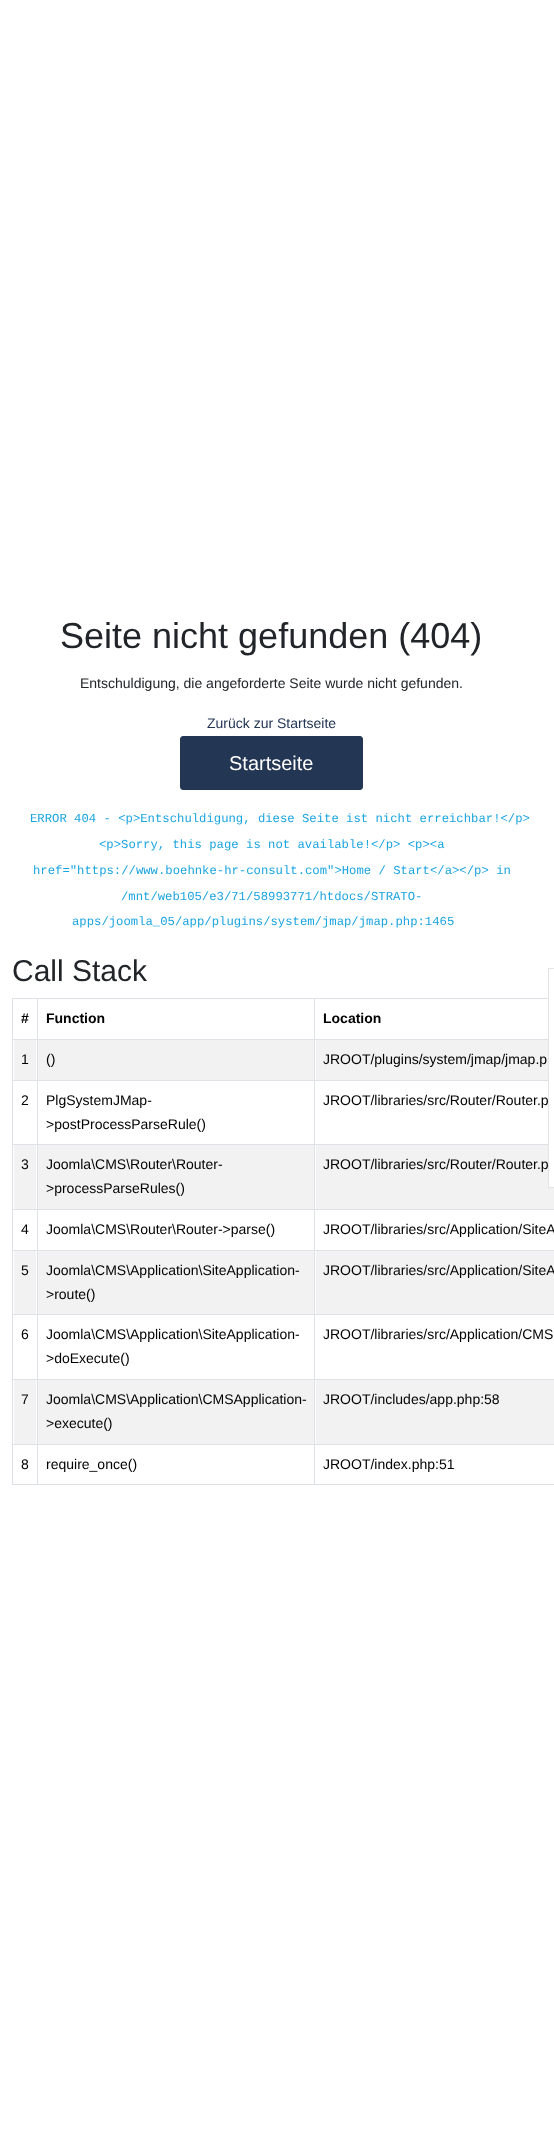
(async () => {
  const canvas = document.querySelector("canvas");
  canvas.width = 554;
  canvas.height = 2156;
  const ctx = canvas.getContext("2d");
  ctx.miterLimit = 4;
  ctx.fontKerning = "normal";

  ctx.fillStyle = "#ffffff";
  ctx.fillRect(0, 0, 554, 2156);
  ctx.fillStyle = "#233654";
  ctx.beginPath();
  ctx.roundRect(180.5, 736.5, 182, 53, 2.5);
  ctx.fill();
  ctx.strokeStyle = "#233654";
  ctx.stroke();
  for (const [x, y, w, h, color] of [
    [12, 998, 542, 1, "#dee2e6"],
    [12, 1039, 542, 1, "#dee2e6"],
    [14, 1040, 22, 40, "#f2f2f2"],
    [38, 1040, 276, 40, "#f2f2f2"],
    [316, 1040, 232, 40, "#f2f2f2"],
    [12, 1080, 542, 1, "#dee2e6"],
    [12, 1144, 542, 1, "#dee2e6"],
    [14, 1145, 22, 64, "#f2f2f2"],
    [38, 1145, 276, 64, "#f2f2f2"],
    [316, 1145, 238, 64, "#f2f2f2"],
    [12, 1209, 542, 1, "#dee2e6"],
    [12, 1250, 542, 1, "#dee2e6"],
    [14, 1251, 22, 63, "#f2f2f2"],
    [38, 1251, 276, 63, "#f2f2f2"],
    [316, 1251, 238, 63, "#f2f2f2"],
    [12, 1314, 542, 1, "#dee2e6"],
    [12, 1379, 542, 1, "#dee2e6"],
    [14, 1380, 22, 64, "#f2f2f2"],
    [38, 1380, 276, 64, "#f2f2f2"],
    [316, 1380, 238, 64, "#f2f2f2"],
    [12, 1444, 542, 1, "#dee2e6"],
    [12, 1484, 542, 1, "#dee2e6"],
    [12, 998, 1, 487, "#dee2e6"],
    [37, 998, 1, 487, "#dee2e6"],
    [314, 998, 1, 487, "#dee2e6"],
    [549, 998, 5, 190, "#ffffff"],
  ]) {
    ctx.fillStyle = color;
    ctx.fillRect(x, y, w, h);
  }
  ctx.font = "36px Liberation Sans";
  ctx.fillStyle = "#212529";
  ctx.fillText("Seite nicht gefunden (404)", 60, 648);
  ctx.font = "14px Liberation Sans";
  ctx.fillText("Entschuldigung, die angeforderte Seite wurde nicht gefunden.", 80, 688);
  ctx.fillStyle = "#233654";
  ctx.fillText("Zurück zur Startseite", 207, 728);
  ctx.font = "20px Liberation Sans";
  ctx.fillStyle = "#ffffff";
  ctx.fillText("Startseite", 229, 770);
  ctx.font = "12.25px Liberation Mono";
  ctx.fillStyle = "#1aa4e0";
  for (const [text, x, y] of [
    ["ERROR 404 - <p>Entschuldigung, diese Seite ist nicht erreichbar!<\/p>", 30, 822],
    ["<p>Sorry, this page is not available!<\/p> <p><a", 99, 848],
    ["href=\"https://www.boehnke-hr-consult.com\">Home / Start<\/a><\/p> in", 33, 874],
    ["/mnt/web105/e3/71/58993771/htdocs/STRATO-", 121, 900],
    ["apps/joomla_05/app/plugins/system/jmap/jmap.php:1465", 72, 925],
  ]) {
    ctx.fillText(text, x, y);
  }
  ctx.font = "30px Liberation Sans";
  ctx.fillStyle = "#212529";
  ctx.fillText("Call Stack", 12, 981);
  ctx.font = "bold 14px Liberation Sans";
  ctx.fillStyle = "#000000";
  for (const [text, x, y] of [
    ["#", 21, 1023],
    ["Function", 46, 1023],
    ["Location", 323, 1023],
  ]) {
    ctx.fillText(text, x, y);
  }
  ctx.font = "14px Liberation Sans";
  for (const [text, x, y] of [
    ["1", 21, 1064],
    ["()", 46, 1064],
    ["JROOT/plugins/system/jmap/jmap.p", 323, 1064],
    ["2", 21, 1105],
    ["PlgSystemJMap-", 46, 1105],
    [">postProcessParseRule()", 46, 1129],
    ["JROOT/libraries/src/Router/Router.p", 323, 1105],
    ["3", 21, 1169],
    ["Joomla\\CMS\\Router\\Router-", 46, 1169],
    [">processParseRules()", 46, 1193],
    ["JROOT/libraries/src/Router/Router.p", 323, 1169],
    ["4", 21, 1234],
    ["Joomla\\CMS\\Router\\Router->parse()", 46, 1234],
    ["JROOT/libraries/src/Application/SiteA", 323, 1234],
    ["5", 21, 1275],
    ["Joomla\\CMS\\Application\\SiteApplication-", 46, 1275],
    [">route()", 46, 1299],
    ["JROOT/libraries/src/Application/SiteA", 323, 1275],
    ["6", 21, 1339],
    ["Joomla\\CMS\\Application\\SiteApplication-", 46, 1339],
    [">doExecute()", 46, 1363],
    ["JROOT/libraries/src/Application/CMS", 323, 1339],
    ["7", 21, 1404],
    ["Joomla\\CMS\\Application\\CMSApplication-", 46, 1404],
    [">execute()", 46, 1428],
    ["JROOT/includes/app.php:58", 323, 1404],
    ["8", 21, 1469],
    ["require_once()", 46, 1469],
    ["JROOT/index.php:51", 323, 1469],
  ]) {
    ctx.fillText(text, x, y);
  }
  ctx.strokeStyle = "#e5e4e3";
  ctx.strokeRect(548.5, 968.5, 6, 219);
})();
